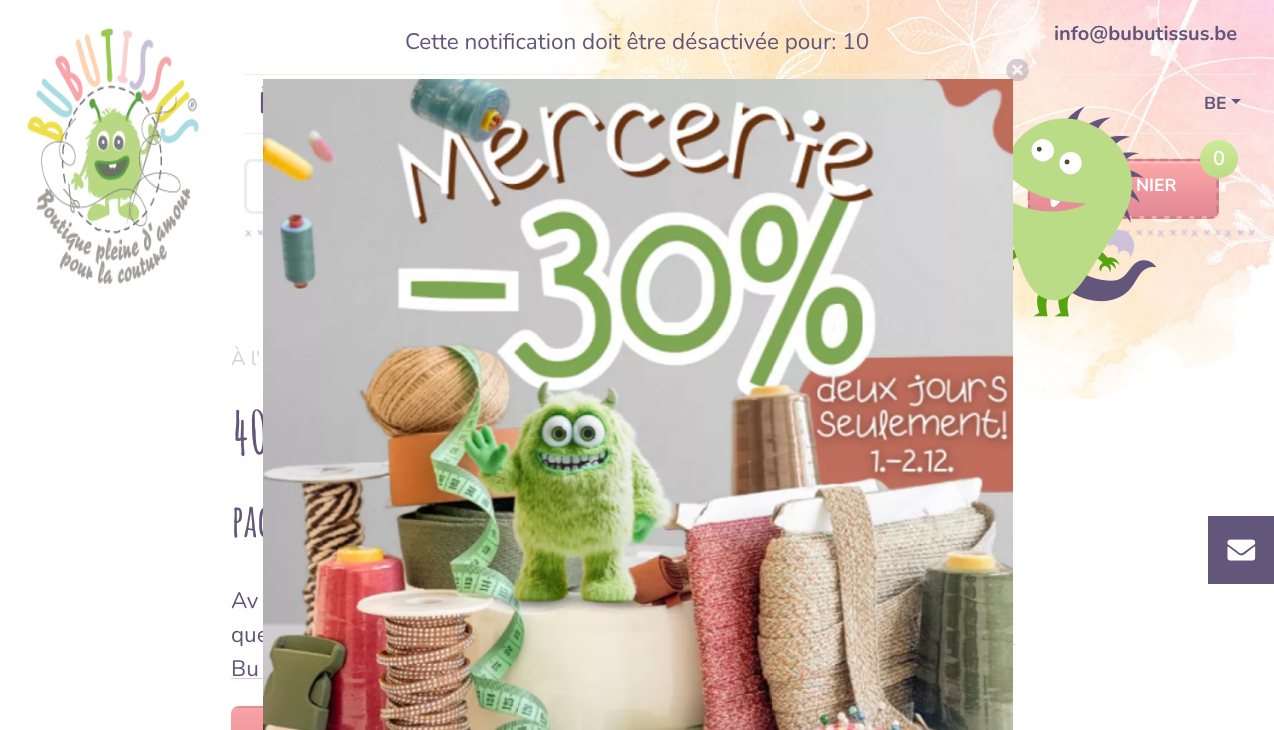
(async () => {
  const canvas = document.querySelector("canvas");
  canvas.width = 1274;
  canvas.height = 730;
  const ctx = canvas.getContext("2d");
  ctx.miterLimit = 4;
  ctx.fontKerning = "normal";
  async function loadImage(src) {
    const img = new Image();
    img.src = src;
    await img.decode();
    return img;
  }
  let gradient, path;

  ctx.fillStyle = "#ffffff";
  ctx.fillRect(0, 0, 1274, 730);
  ctx.drawImage(await loadImage("img/1.png"), 538, 0, 736, 399);
  ctx.drawImage(await loadImage("img/4.png"), 27, 28, 172, 257);
  ctx.drawImage(await loadImage("img/5.png"), 245, 228, 1010, 10);
  ctx.fillStyle = "#f7ede6";
  ctx.fillRect(244, 74, 1012, 1);
  ctx.fillRect(244, 133, 1012, 1);
  ctx.drawImage(await loadImage("img/6.png"), 260, 86, 3, 28);
  ctx.fillStyle = "#62567a";
  path = new Path2D("M1231 99H1241L1236 104Z");
  ctx.fill(path);
  ctx.beginPath();
  ctx.roundRect(245.5, 160.5, 264, 52, 6.5);
  ctx.strokeStyle = "#eeebf4";
  ctx.lineWidth = 3;
  ctx.stroke();
  ctx.save();
  ctx.beginPath();
  ctx.roundRect(1028, 159, 191, 60, 8);
  ctx.clip();
  gradient = ctx.createLinearGradient(1123, 216, 1123, 161);
  gradient.addColorStop(0.01, "#e18995");
  gradient.addColorStop(0.57, "#f0999f");
  gradient.addColorStop(1, "#ffa8a8");
  ctx.fillStyle = gradient;
  ctx.fillRect(1028, 161, 191, 55);
  ctx.restore();
  ctx.fillStyle = "rgba(255, 255, 255, 0.19)";
  path = new Path2D("M1035 164H1211C1214 164 1216 166 1216 169V166C1216 163 1214 161 1211 161H1035C1032 161 1030 163 1030 166V169C1030 166 1032 164 1035 164Z");
  ctx.fill(path);
  gradient = ctx.createLinearGradient(1123, 161, 1123, 106);
  gradient.addColorStop(0.01, "#e18995");
  gradient.addColorStop(0.57, "#f0999f");
  gradient.addColorStop(1, "#ffa8a8");
  ctx.fillStyle = gradient;
  ctx.fillRect(1045, 159, 153, 2);
  ctx.save();
  ctx.beginPath();
  ctx.roundRect(1028, 159, 191, 60, 8);
  ctx.clip();
  gradient = ctx.createLinearGradient(1123, 271, 1123, 216);
  gradient.addColorStop(0.01, "#e18995");
  gradient.addColorStop(0.57, "#f0999f");
  gradient.addColorStop(1, "#ffa8a8");
  ctx.fillStyle = gradient;
  ctx.fillRect(1122, 216, 97, 3);
  ctx.restore();
  path = new Path2D("M1035 160H1211C1214.5 160 1217.5 163 1217.5 166V211C1217.5 214.5 1214.5 217.5 1211 217.5H1035C1031.5 217.5 1029 214.5 1029 211V166C1029 163 1031.5 160 1035 160Z");
  ctx.strokeStyle = "#cb7e88";
  ctx.lineWidth = 2.5;
  ctx.setLineDash([7.5, 5]);
  ctx.stroke(path);
  gradient = ctx.createLinearGradient(1219, 178, 1219, 140);
  gradient.addColorStop(0.01, "#bcdc87");
  gradient.addColorStop(0.58, "#c4e490");
  gradient.addColorStop(1, "#ccec98");
  ctx.fillStyle = gradient;
  ctx.beginPath();
  ctx.arc(1219, 159, 19, 0, Math.PI * 2);
  ctx.fill();
  ctx.fillStyle = "#fdc1c0";
  ctx.fillRect(1013, 644, 2, 1);
  ctx.fillRect(231, 678, 32, 1);
  ctx.save();
  ctx.beginPath();
  ctx.roundRect(231, 706, 304, 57, 8);
  ctx.clip();
  gradient = ctx.createLinearGradient(383, 654, 383, 708);
  gradient.addColorStop(0, "#faa3a5");
  gradient.addColorStop(1, "#e48d97");
  ctx.fillStyle = gradient;
  ctx.fillRect(231, 706, 32, 2);
  gradient = ctx.createLinearGradient(383, 708, 383, 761);
  gradient.addColorStop(0, "#faa3a5");
  gradient.addColorStop(1, "#e48d97");
  ctx.fillStyle = gradient;
  ctx.fillRect(231, 708, 32, 22);
  ctx.restore();
  ctx.drawImage(await loadImage("img/8.png"), 1208, 516, 66, 68);
  ctx.font = "22.5px Nunito";
  ctx.fillStyle = "#62567a";
  ctx.fillText("Cette notification doit être désactivée pour: 10", 405, 49);
  ctx.font = "bold 20px Nunito";
  ctx.fillText("info@bubutissus.be", 1054, 40);
  ctx.font = "bold 17.5px Nunito";
  ctx.fillText("BE", 1204, 109);
  ctx.font = "600 20px Nunito";
  ctx.fillStyle = "#ffffff";
  ctx.fillText("0", 1213, 165);
  ctx.font = "bold 17.5px Nunito";
  ctx.fillText("NIER", 1136, 191);
  ctx.drawImage(await loadImage("img/7.png"), 1013, 106, 143, 211);
  ctx.font = "20px Nunito";
  ctx.fillStyle = "#d8d2db";
  ctx.fillText("À l'", 231, 365);
  ctx.font = "bold 60px Amatic SC";
  ctx.fillStyle = "#62567a";
  ctx.fillText("40", 231, 455);
  ctx.font = "bold 45px Amatic SC";
  ctx.fillText("pag", 231, 537);
  ctx.font = "22.5px Nunito";
  ctx.fillText("Av", 231, 608);
  ctx.fillText("que", 231, 642);
  ctx.drawImage(await loadImage("img/3.png"), 263, 79, 750, 651);
  ctx.drawImage(await loadImage("img/2.png"), 1006, 59, 23, 22);
  ctx.fillText("Bu", 231, 676);
})();
